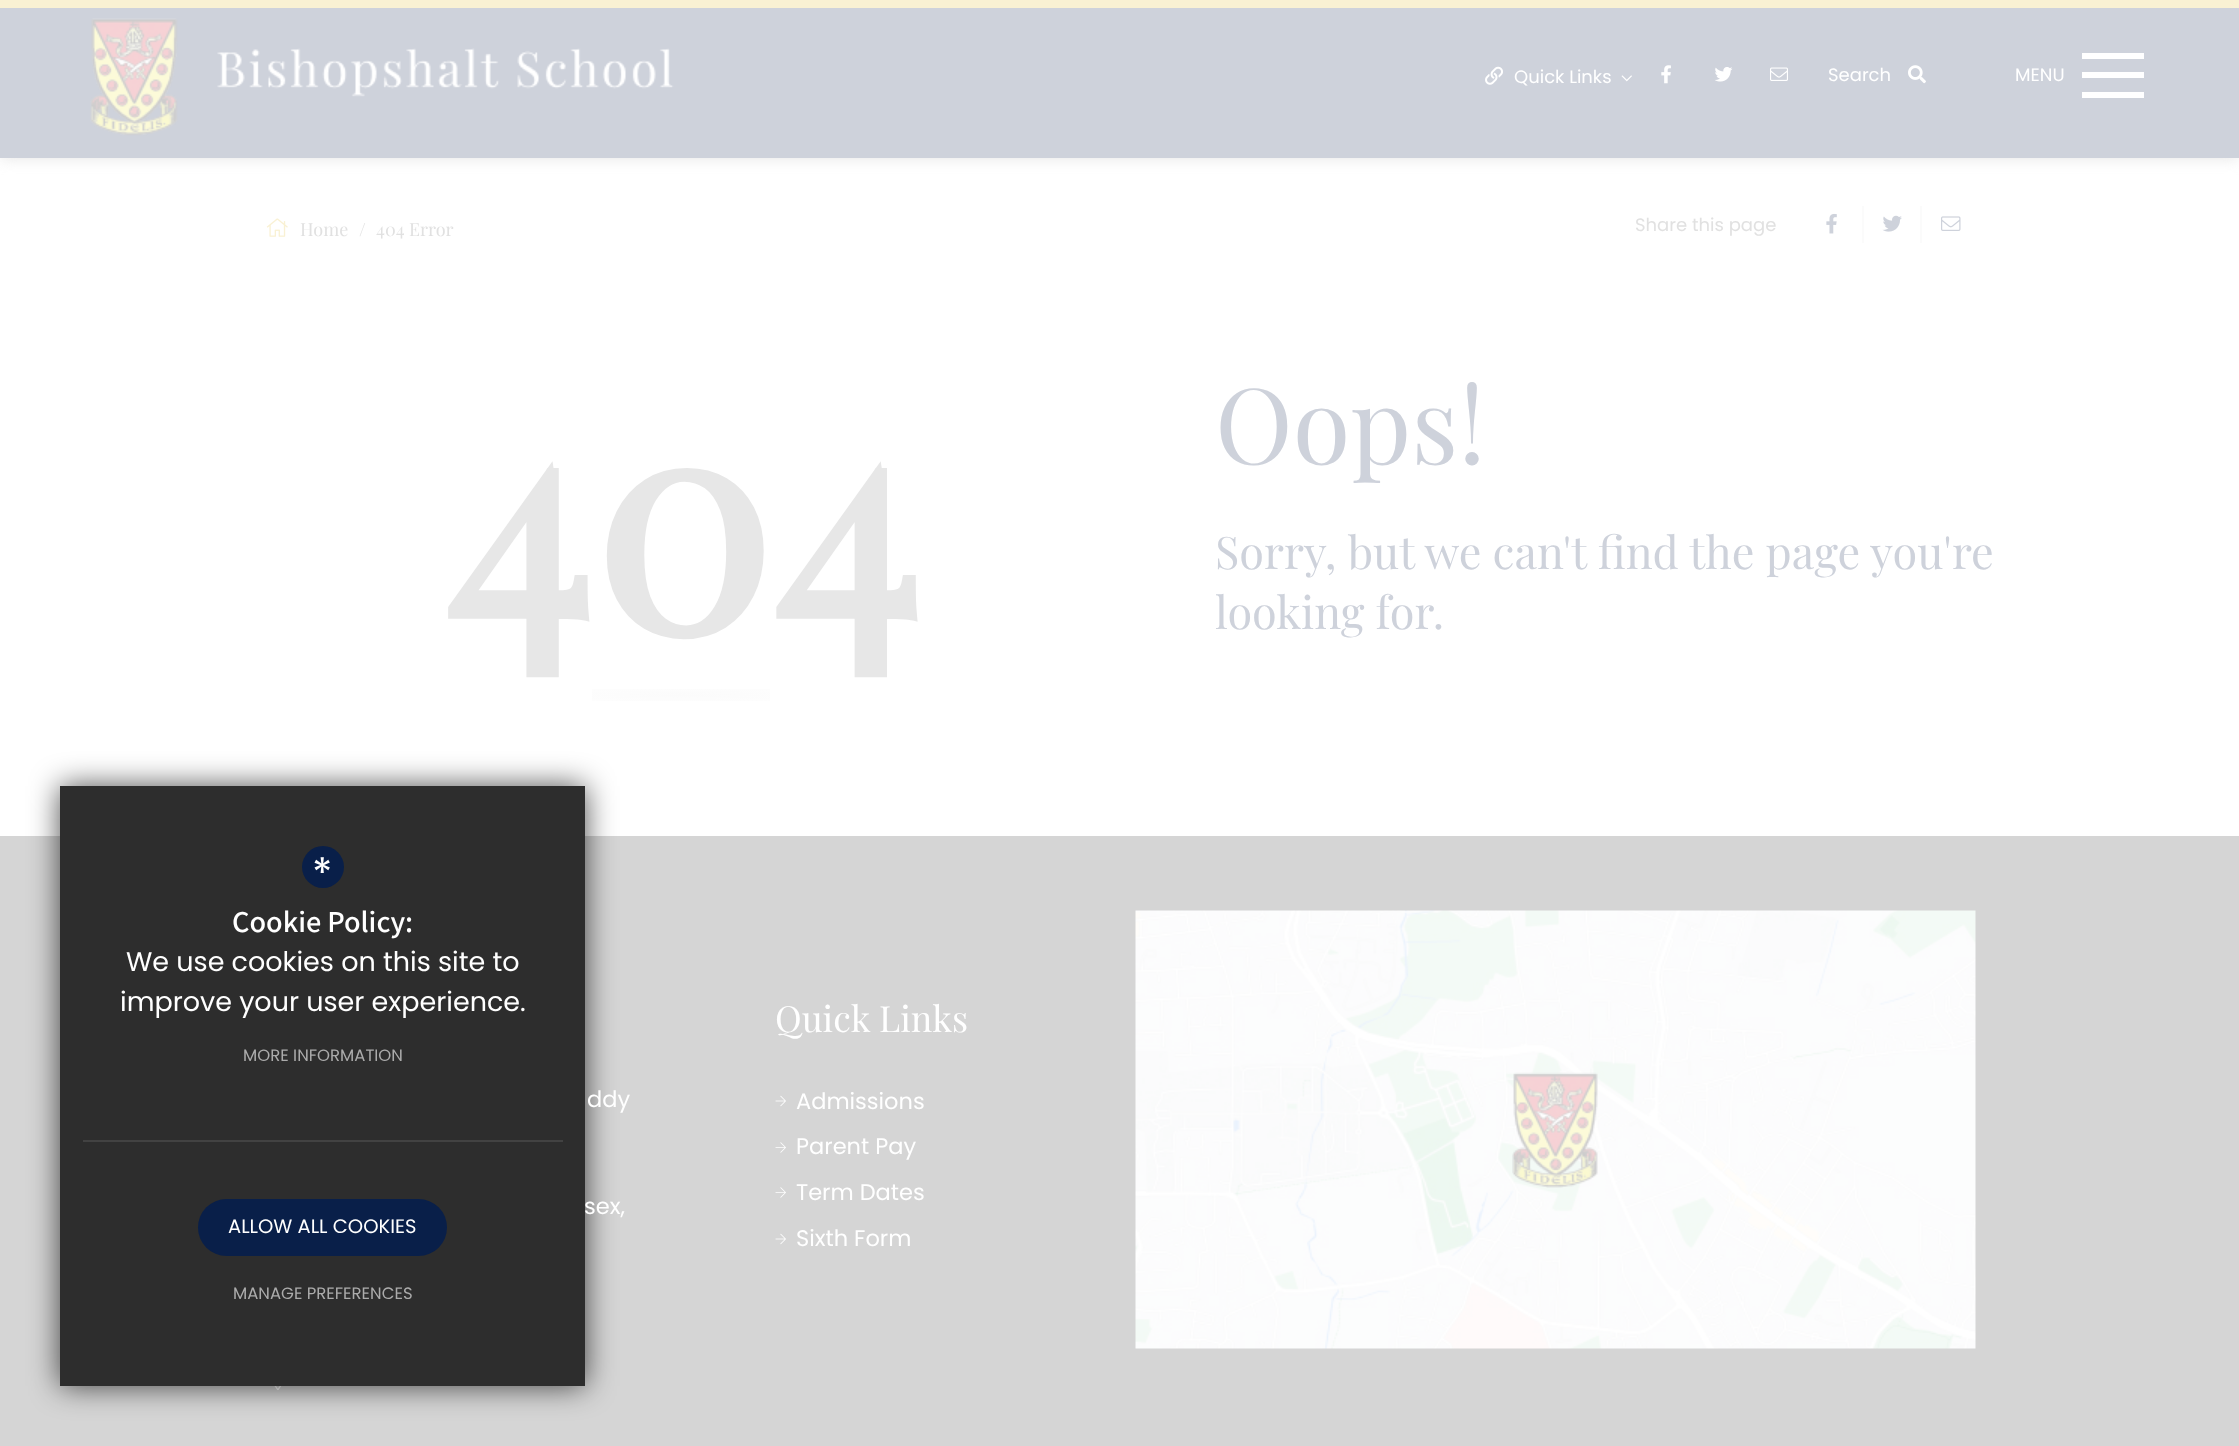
(async () => {
  const canvas = document.querySelector("canvas");
  canvas.width = 2239;
  canvas.height = 1446;
  const ctx = canvas.getContext("2d");
  ctx.miterLimit = 4;
  ctx.fontKerning = "normal";
  async function loadImage(src) {
    const img = new Image();
    img.src = src;
    await img.decode();
    return img;
  }
  let gradient;

  ctx.fillStyle = "#ffffff";
  ctx.fillRect(0, 0, 2239, 1446);
  ctx.fillStyle = "rgba(204, 204, 204, 0.5)";
  ctx.filter = "blur(7.5px)";
  ctx.beginPath();
  ctx.rect(0, 0, 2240, 158);
  ctx.fill();
  ctx.filter = "none";
  ctx.fillStyle = "#f9f1d3";
  ctx.fillRect(0, 0, 2239, 8);
  ctx.fillStyle = "#ced2db";
  ctx.fillRect(0, 8, 2239, 150);
  ctx.drawImage(await loadImage("img/1.png"), 90, 18, 584, 118);
  ctx.drawImage(await loadImage("img/2.png"), 1485, 66, 18, 19);
  ctx.drawImage(await loadImage("img/3.png"), 1621, 75, 11, 7);
  ctx.drawImage(await loadImage("img/4.png"), 1661, 65, 10, 19);
  ctx.drawImage(await loadImage("img/5.png"), 1714, 67, 19, 15);
  ctx.drawImage(await loadImage("img/6.png"), 1770, 67, 18, 14);
  ctx.drawImage(await loadImage("img/7.png"), 1908, 65, 18, 19);
  for (const [x, y, w, h, color] of [
    [2082, 53, 62, 6, "#ffffff"],
    [2082, 72, 62, 6, "#ffffff"],
    [2082, 92, 62, 6, "#ffffff"],
  ]) {
    ctx.fillStyle = color;
    ctx.fillRect(x, y, w, h);
  }
  ctx.drawImage(await loadImage("img/8.png"), 266, 218, 22, 19);
  ctx.drawImage(await loadImage("img/9.png"), 1826, 213, 11, 21);
  ctx.fillStyle = "#fbfbfb";
  ctx.fillRect(1862, 206, 2, 37);
  ctx.drawImage(await loadImage("img/10.png"), 1882, 215, 20, 17);
  ctx.fillRect(1920, 206, 2, 37);
  ctx.drawImage(await loadImage("img/11.png"), 1941, 216, 20, 15);
  gradient = ctx.createRadialGradient(681, 11153.1, 0, 681, 11153.1, 337);
  gradient.addColorStop(0, "#fbfbfb");
  gradient.addColorStop(0.53, "#fefefe");
  gradient.addColorStop(1, "#ffffff");
  ctx.fillStyle = gradient;
  ctx.beginPath();
  ctx.rect(592, 689, 178, 12);
  ctx.save();
  ctx.clip();
  ctx.scale(1, 21 / 337);
  ctx.fillRect(0, 0, 2239, 23205);
  ctx.restore();
  ctx.fillStyle = "#d5d5d5";
  ctx.fillRect(0, 836, 2239, 610);
  ctx.drawImage(await loadImage("img/12.png"), 274, 1386, 8, 5);
  ctx.fillStyle = "rgba(0, 0, 0, 0.7)";
  ctx.filter = "blur(15px)";
  ctx.beginPath();
  ctx.rect(60, 786, 525, 600);
  ctx.fill();
  ctx.filter = "none";
  ctx.drawImage(await loadImage("img/13.png"), 775, 1095, 11, 12);
  ctx.drawImage(await loadImage("img/14.png"), 775, 1142, 11, 11);
  ctx.drawImage(await loadImage("img/14.png"), 775, 1187, 11, 11);
  ctx.drawImage(await loadImage("img/13.png"), 775, 1233, 11, 12);
  ctx.drawImage(await loadImage("img/15.png"), 1135, 910, 841, 439);
  ctx.drawImage(await loadImage("img/16.png"), 1512, 1072, 86, 116);
  ctx.font = "18px Poppins";
  ctx.fillStyle = "#ffffff";
  for (const [text, x, y] of [
    ["Quick Links", 1514, 83],
    ["Search", 1828, 81],
    ["MENU", 2015, 81],
  ]) {
    ctx.fillText(text, x, y);
  }
  ctx.font = "18px Playfair Display";
  ctx.fillStyle = "#e1e1e1";
  for (const [text, x, y] of [
    ["Home", 300, 236],
    ["/", 359, 236],
    ["404 Error", 376, 236],
  ]) {
    ctx.fillText(text, x, y);
  }
  ctx.font = "18px Poppins";
  ctx.fillText("Share this page", 1635, 231);
  ctx.font = "bold 300px Playfair Display";
  ctx.fillStyle = "#e7e7e7";
  ctx.fillText("404", 443, 635);
  ctx.font = "105px Playfair Display";
  ctx.fillStyle = "#ced2db";
  ctx.fillText("Oops!", 1215, 464);
  ctx.font = "45px Playfair Display";
  ctx.fillText("Sorry, but we can't find the page you're", 1215, 569);
  ctx.fillText("looking for.", 1215, 629);
  ctx.font = "22.5px Poppins";
  ctx.fillStyle = "#ffffff";
  ctx.fillText("ddy", 587, 1107);
  ctx.fillText("sex,", 584, 1214);
  ctx.fillStyle = "#2d2d2d";
  ctx.fillRect(60, 786, 525, 600);
  ctx.font = "16.5px Poppins";
  ctx.fillStyle = "#ababab";
  ctx.fillText("MANAGE PREFERENCES", 233, 1299);
  ctx.fillStyle = "#091f49";
  ctx.beginPath();
  ctx.roundRect(198, 1199, 249, 57, 28.5);
  ctx.fill();
  ctx.font = "19.5px Poppins";
  ctx.fillStyle = "#ffffff";
  ctx.fillText("ALLOW ALL COOKIES", 228, 1233);
  ctx.font = "16.5px Poppins";
  ctx.fillStyle = "#ababab";
  ctx.fillText("MORE INFORMATION", 243, 1061);
  ctx.font = "27px Poppins";
  ctx.fillStyle = "#ffffff";
  ctx.fillText("improve your user experience.", 120, 1011);
  ctx.fillText("We use cookies on this site to", 126, 971);
  ctx.font = "500 27px Noto Sans KR";
  ctx.fillText("Cookie Policy:", 232, 932);
  ctx.fillStyle = "#091f49";
  ctx.beginPath();
  ctx.arc(323, 867, 21, 0, Math.PI * 2);
  ctx.fill();
  ctx.font = "42px Poppins";
  ctx.fillStyle = "#ffffff";
  ctx.fillText("*", 312, 888);
  ctx.fillStyle = "#424242";
  ctx.fillRect(83, 1140, 480, 2);
  ctx.font = "36px Playfair Display";
  ctx.fillStyle = "#ffffff";
  ctx.fillText("Quick Links", 775, 1032);
  ctx.font = "22.5px Poppins";
  for (const [text, x, y] of [
    ["Admissions", 796, 1109],
    ["Parent Pay", 796, 1154],
    ["Term Dates", 796, 1200],
    ["Sixth Form", 796, 1246],
  ]) {
    ctx.fillText(text, x, y);
  }
})();
